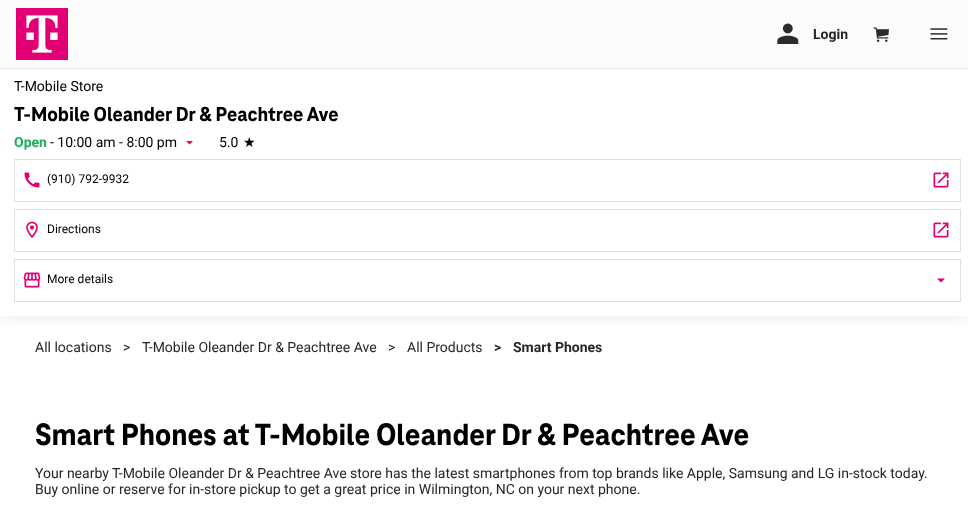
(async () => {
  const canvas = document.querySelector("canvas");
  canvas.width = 968;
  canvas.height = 514;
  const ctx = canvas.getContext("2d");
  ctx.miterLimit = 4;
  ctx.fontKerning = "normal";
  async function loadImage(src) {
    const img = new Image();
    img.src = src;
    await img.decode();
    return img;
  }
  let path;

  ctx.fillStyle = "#ffffff";
  ctx.fillRect(0, 0, 968, 514);
  ctx.save();
  ctx.beginPath();
  ctx.rect(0, 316, 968, 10);
  ctx.clip();
  ctx.fillStyle = "rgba(71, 71, 71, 0.12)";
  ctx.filter = "blur(10px)";
  ctx.beginPath();
  ctx.rect(0, 69, 968, 247);
  ctx.fill();
  ctx.filter = "none";
  ctx.restore();
  ctx.fillStyle = "#e6e6e6";
  ctx.fillRect(0, 68, 968, 1);
  ctx.fillStyle = "#fbfbfb";
  ctx.fillRect(0, 0, 968, 68);
  ctx.drawImage(await loadImage("img/1.png"), 16, 8, 52, 52);
  ctx.drawImage(await loadImage("img/2.png"), 777, 23, 22, 21);
  ctx.drawImage(await loadImage("img/3.png"), 873, 27, 16, 15);
  ctx.drawImage(await loadImage("img/4.png"), 930, 28, 18, 12);
  ctx.fillStyle = "#e20074";
  path = new Path2D("M186 141H193L189.5 144.5Z");
  ctx.fill(path);
  ctx.strokeStyle = "#dcdfe6";
  ctx.strokeRect(14.5, 159.5, 946, 42);
  ctx.drawImage(await loadImage("img/5.png"), 24, 172, 16, 16);
  ctx.drawImage(await loadImage("img/6.png"), 933, 172, 16, 16);
  ctx.strokeRect(14.5, 209.5, 946, 42);
  ctx.drawImage(await loadImage("img/7.png"), 26, 221, 12, 18);
  ctx.drawImage(await loadImage("img/6.png"), 933, 222, 16, 16);
  ctx.strokeRect(14.5, 259.5, 946, 42);
  ctx.drawImage(await loadImage("img/8.png"), 23, 272, 18, 16);
  path = new Path2D("M937 278.5H945L941 282.5Z");
  ctx.fill(path);
  ctx.font = "bold 14px Roboto";
  ctx.fillStyle = "#262626";
  ctx.fillText("Login", 813, 39);
  ctx.font = "14px Roboto";
  ctx.fillStyle = "#000000";
  ctx.fillText("T-Mobile Store", 14, 91);
  ctx.font = "800 21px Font";
  ctx.fillText("T-Mobile Oleander Dr & Peachtree Ave", 14, 121);
  ctx.font = "bold 14px Roboto";
  ctx.fillStyle = "#1baf5a";
  ctx.fillText("Open", 14, 147);
  ctx.font = "14px Roboto";
  ctx.fillStyle = "#000000";
  ctx.fillText("- 10:00 am - 8:00 pm", 50, 147);
  ctx.fillText("5.0", 219, 147);
  ctx.font = "14px DejaVu Sans";
  ctx.fillText("★", 243, 147);
  ctx.font = "12px Roboto";
  for (const [text, x, y] of [
    ["(910) 792-9932", 47, 183],
    ["Directions", 47, 233],
    ["More details", 47, 283],
  ]) {
    ctx.fillText(text, x, y);
  }
  ctx.font = "14px Roboto";
  ctx.fillStyle = "#262626";
  for (const [text, x, y] of [
    ["All locations", 35, 352],
    [">", 123, 352],
    ["T-Mobile Oleander Dr & Peachtree Ave", 142, 352],
    [">", 388, 352],
    ["All Products", 407, 352],
  ]) {
    ctx.fillText(text, x, y);
  }
  ctx.font = "bold 14px Roboto";
  ctx.fillText(">", 494, 352);
  ctx.fillText("Smart Phones", 513, 352);
  ctx.font = "800 32px Font";
  ctx.fillStyle = "#000000";
  ctx.fillText("Smart Phones at T-Mobile Oleander Dr & Peachtree Ave", 35, 445);
  ctx.font = "14px Roboto";
  ctx.fillStyle = "#262626";
  ctx.fillText("Your nearby T-Mobile Oleander Dr & Peachtree Ave store has the latest smartphones from top brands like Apple, Samsung and LG in-stock today.", 35, 478);
  ctx.fillText("Buy online or reserve for in-store pickup to get a great price in Wilmington, NC on your next phone.", 35, 494);
})();
